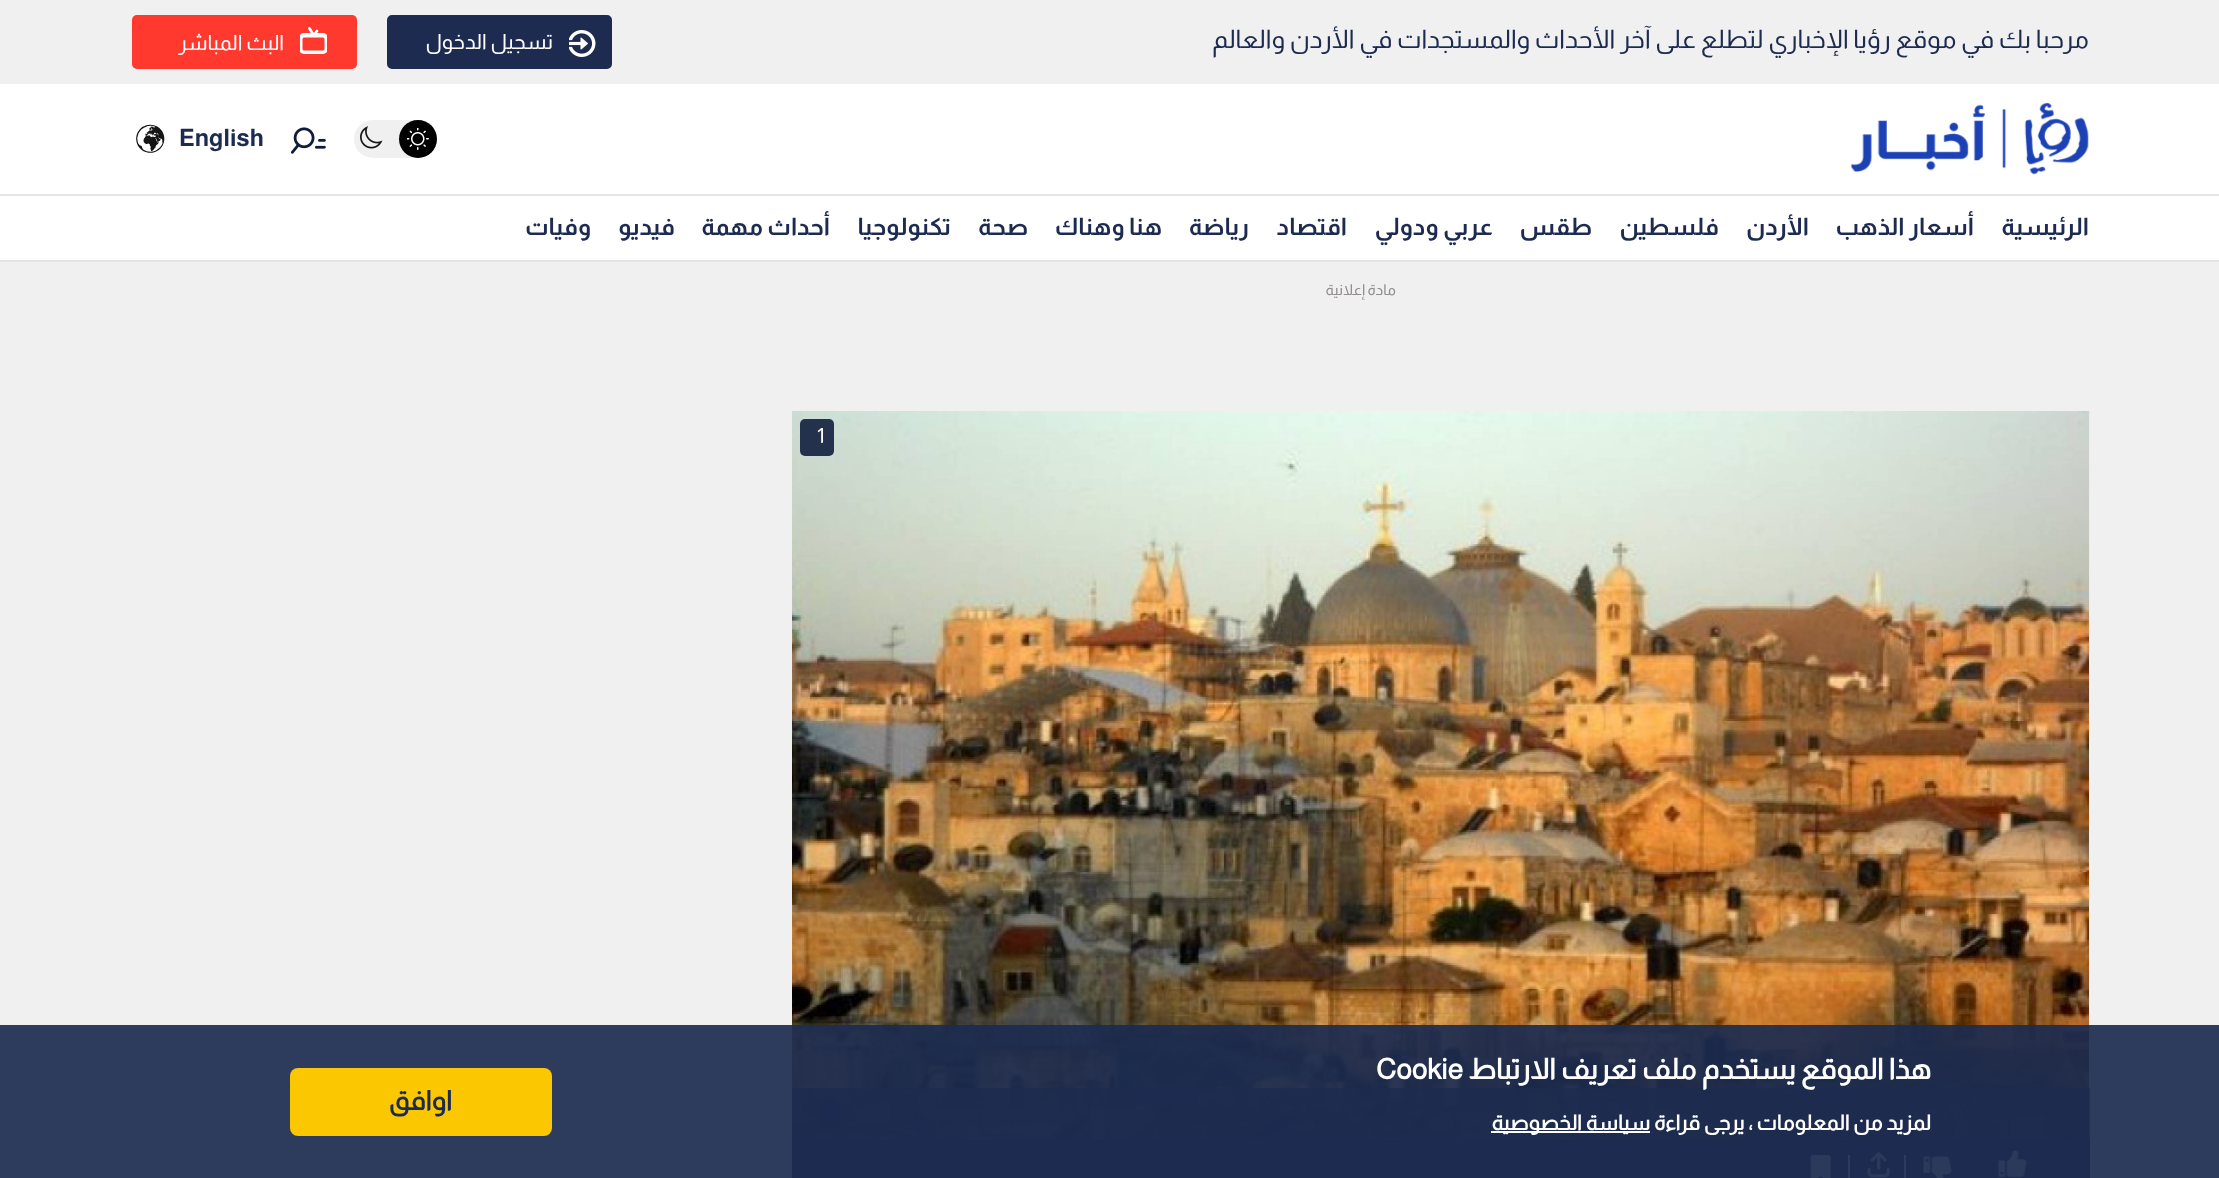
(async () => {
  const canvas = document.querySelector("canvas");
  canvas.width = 2219;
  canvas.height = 1178;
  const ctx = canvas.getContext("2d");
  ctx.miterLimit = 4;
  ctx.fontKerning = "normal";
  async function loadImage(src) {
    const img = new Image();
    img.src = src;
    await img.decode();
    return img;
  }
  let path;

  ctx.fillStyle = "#f0f0f0";
  ctx.fillRect(0, 0, 2219, 1178);
  ctx.fillStyle = "#1c2b4f";
  ctx.beginPath();
  ctx.roundRect(388, 16, 223, 52, 4);
  ctx.fill();
  ctx.strokeStyle = "#1c2b4f";
  ctx.lineWidth = 2;
  ctx.stroke();
  ctx.drawImage(await loadImage("img/1.png"), 569, 30, 27, 27);
  ctx.fillStyle = "#ff392e";
  ctx.beginPath();
  ctx.roundRect(132, 15, 225, 54, 5);
  ctx.fill();
  ctx.save();
  ctx.beginPath();
  ctx.rect(300, 27, 27, 27);
  ctx.clip();
  ctx.beginPath();
  ctx.roundRect(300.25, 34.25, 26.5, 18.5, 3.75);
  ctx.strokeStyle = "#ffffff";
  ctx.lineWidth = 2.5;
  ctx.stroke();
  ctx.restore();
  ctx.beginPath();
  ctx.roundRect(301.25, 36.25, 24.5, 15.5, 2.75);
  ctx.strokeStyle = "#ffffff";
  ctx.lineWidth = 2.5;
  ctx.stroke();
  path = new Path2D("M313.5 35L309.5 28.5M314 35L317 31");
  ctx.lineWidth = 2.7;
  ctx.lineCap = "round";
  ctx.stroke(path);
  ctx.fillStyle = "#ffffff";
  ctx.fillRect(0, 84, 2219, 176);
  ctx.drawImage(await loadImage("img/2.png"), 1850, 102, 239, 73);
  ctx.fillStyle = "#f0f0f0";
  ctx.beginPath();
  ctx.roundRect(354, 120, 83, 38, 19);
  ctx.fill();
  ctx.fillStyle = "#000000";
  ctx.beginPath();
  ctx.arc(418, 139, 19, 0, Math.PI * 2);
  ctx.fill();
  ctx.drawImage(await loadImage("img/3.png"), 407, 128, 22, 22);
  ctx.drawImage(await loadImage("img/4.png"), 360, 126, 23, 23);
  ctx.drawImage(await loadImage("img/5.png"), 291, 127, 35, 27);
  ctx.drawImage(await loadImage("img/6.png"), 136, 124, 29, 29);
  for (const [x, y, w, h, color] of [
    [0, 194, 2219, 2, "#e5e5e5"],
    [0, 260, 2219, 2, "#e5e5e5"],
    [2089, 411, 1, 729, "#ececec"],
  ]) {
    ctx.fillStyle = color;
    ctx.fillRect(x, y, w, h);
  }
  ctx.drawImage(await loadImage("img/7.png"), 792, 411, 1297, 729);
  ctx.fillStyle = "rgba(28, 43, 79, 0.78)";
  ctx.fillRect(792, 1088, 1298, 52);
  ctx.fillStyle = "#1c2b4f";
  ctx.fillRect(792, 1140, 1298, 38);
  ctx.drawImage(await loadImage("img/8.png"), 1997, 1150, 31, 28);
  ctx.drawImage(await loadImage("img/9.png"), 1923, 1156, 30, 22);
  ctx.fillStyle = "#f0f0f0";
  ctx.fillRect(1904, 1155, 2, 23);
  ctx.drawImage(await loadImage("img/10.png"), 1867, 1152, 23, 26);
  ctx.fillRect(1848, 1155, 2, 23);
  ctx.drawImage(await loadImage("img/11.png"), 1810, 1155, 21, 23);
  ctx.fillStyle = "rgba(28, 43, 79, 0.92)";
  ctx.fillRect(0, 1025, 2219, 153);
  ctx.fillStyle = "#ffffff";
  ctx.fillRect(1491, 1131, 159, 2);
  ctx.fillStyle = "#fbc700";
  ctx.beginPath();
  ctx.roundRect(290, 1068, 262, 68, 8);
  ctx.fill();
  ctx.fillStyle = "rgba(15, 28, 60, 0.89)";
  ctx.beginPath();
  ctx.roundRect(800, 419, 34, 37, 5);
  ctx.fill();
  ctx.direction = "rtl";
  ctx.font = "25.5px Almarai";
  ctx.fillStyle = "#1c2b4f";
  ctx.fillText("مرحبا بك في موقع رؤيا الإخباري لتطلع على آخر الأحداث والمستجدات في الأردن والعالم", 2089, 48);
  ctx.font = "21px Almarai";
  ctx.fillStyle = "#ffffff";
  ctx.fillText("تسجيل الدخول", 553, 49);
  ctx.fillText("البث المباشر", 284, 50);
  ctx.direction = "ltr";
  ctx.font = "bold 24px Almarai";
  ctx.fillStyle = "#1c2b4f";
  ctx.fillText("English", 179, 146);
  ctx.direction = "rtl";
  for (const [text, x, y] of [
    ["الرئيسية", 2089, 235],
    ["أسعار الذهب", 1974, 235],
    ["الأردن", 1809, 235],
    ["فلسطين", 1719, 235],
    ["طقس", 1592, 235],
    ["عربي ودولي", 1493, 235],
    ["اقتصاد", 1347, 235],
    ["رياضة", 1249, 235],
    ["هنا وهناك", 1162, 235],
    ["صحة", 1028, 235],
    ["تكنولوجيا", 951, 235],
    ["أحداث مهمة", 830, 235],
    ["فيديو", 675, 235],
    ["وفيات", 591, 235],
  ]) {
    ctx.fillText(text, x, y);
  }
  ctx.font = "bold 28.5px 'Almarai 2'";
  ctx.fillStyle = "#ffffff";
  ctx.fillText("هذا الموقع يستخدم ملف تعريف الارتباط", 1931, 1079);
  ctx.direction = "ltr";
  ctx.fillText("Cookie", 1376, 1079);
  ctx.direction = "rtl";
  ctx.font = "bold 21px 'Almarai 2'";
  ctx.fillText("لمزيد من المعلومات ، يرجى قراءة", 1931, 1130);
  ctx.fillText("سياسة الخصوصية", 1650, 1130);
  ctx.font = "bold 27px 'Almarai 2'";
  ctx.fillStyle = "#1c2b4f";
  ctx.fillText("اوافق", 452, 1110);
  ctx.font = "15px Almarai";
  ctx.fillStyle = "#918d8d";
  ctx.fillText("مادة إعلانية", 1396, 295);
  ctx.direction = "ltr";
  ctx.font = "21px Almarai";
  ctx.fillStyle = "#ffffff";
  ctx.fillText("1", 817, 443);
})();
